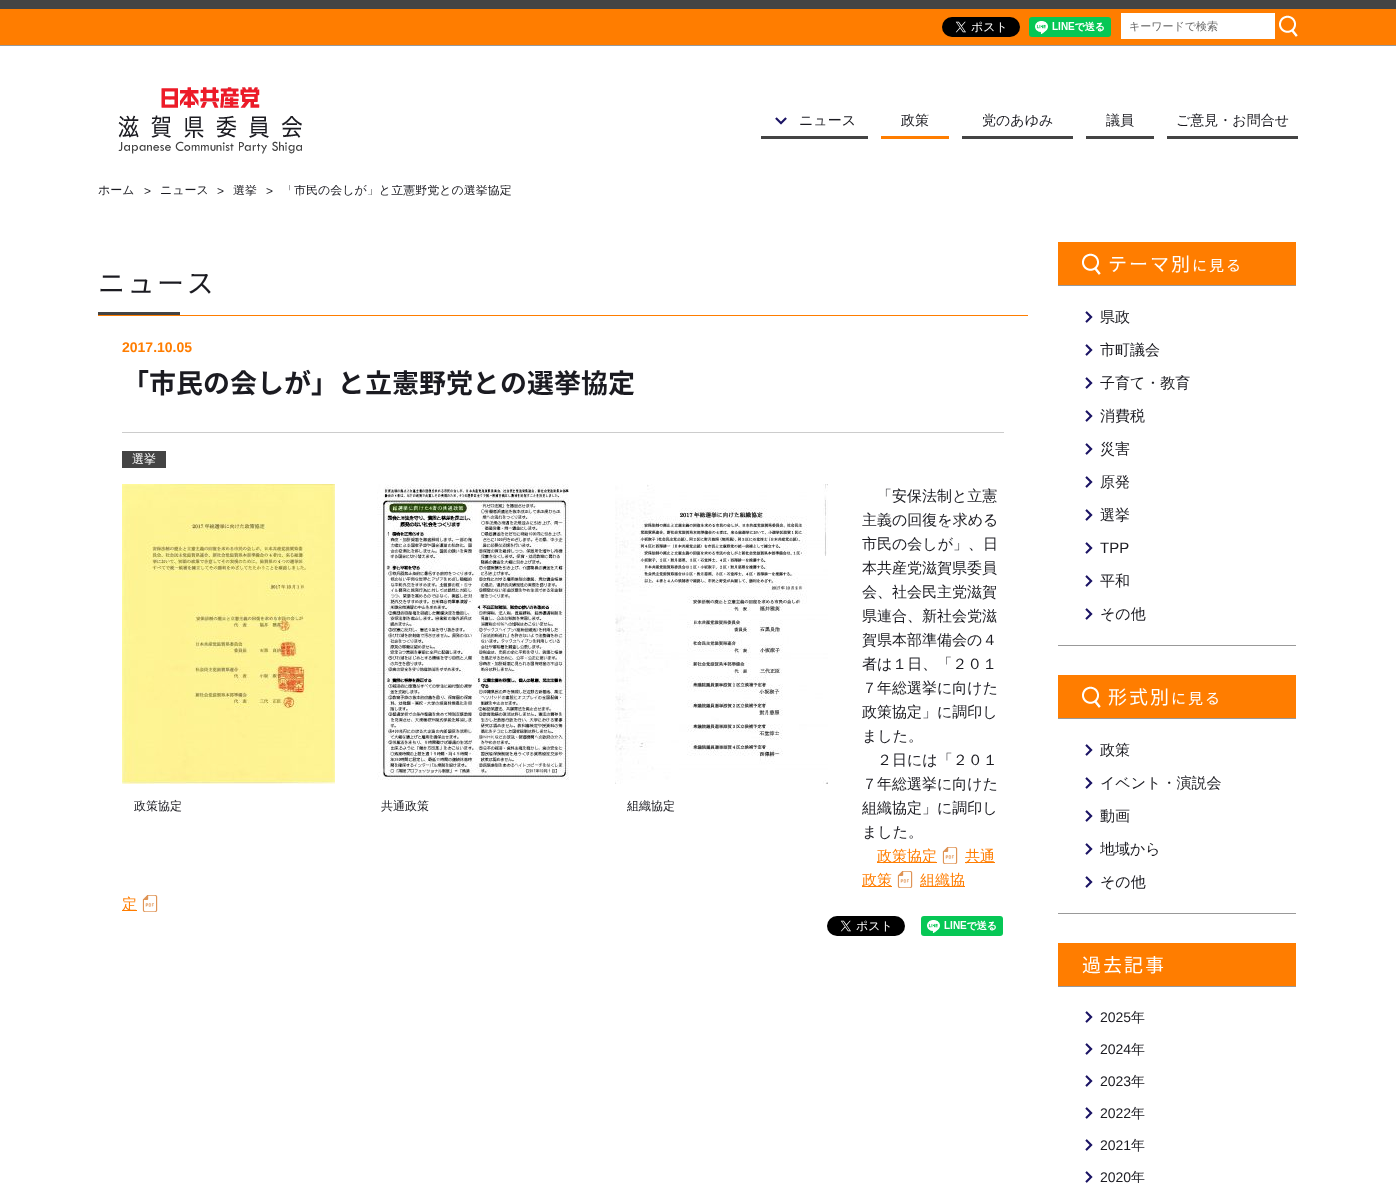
(async () => {
  const canvas = document.querySelector("canvas");
  canvas.width = 1396;
  canvas.height = 1183;
  const ctx = canvas.getContext("2d");
  ctx.miterLimit = 4;
  ctx.fontKerning = "normal";
  async function loadImage(src) {
    const img = new Image();
    img.src = src;
    await img.decode();
    return img;
  }
  let path;

  ctx.fillStyle = "#ffffff";
  ctx.fillRect(0, 0, 1396, 1183);
  ctx.fillStyle = "#444444";
  ctx.fillRect(0, 0, 1396, 9);
  ctx.fillStyle = "rgba(0, 0, 0, 0.4)";
  ctx.filter = "blur(0.5px)";
  ctx.beginPath();
  ctx.rect(0, 10, 1396, 36);
  ctx.fill();
  ctx.filter = "none";
  ctx.fillStyle = "#ff7d00";
  ctx.fillRect(0, 9, 1396, 36);
  ctx.drawImage(await loadImage("img/1.png"), 942, 17, 78, 20);
  ctx.drawImage(await loadImage("img/2.png"), 1029, 17, 82, 20);
  ctx.fillStyle = "#ffffff";
  ctx.fillRect(1121, 13, 154, 26);
  ctx.drawImage(await loadImage("img/3.png"), 1279, 15, 19, 22);
  ctx.drawImage(await loadImage("img/4.png"), 118, 87, 184, 67);
  ctx.fillStyle = "#444444";
  ctx.fillRect(761, 136, 107, 3);
  ctx.drawImage(await loadImage("img/5.png"), 775, 117, 12, 8);
  for (const [x, y, w, h, color] of [
    [881, 136, 68, 3, "#ff7d00"],
    [962, 136, 111, 3, "#444444"],
    [1086, 136, 68, 3, "#444444"],
    [1167, 136, 131, 3, "#444444"],
    [98, 315, 930, 1, "#ff7d00"],
    [98, 312, 82, 3, "#444444"],
    [122, 432, 882, 1, "#cccccc"],
    [122, 451, 44, 17, "#444444"],
  ]) {
    ctx.fillStyle = color;
    ctx.fillRect(x, y, w, h);
  }
  ctx.drawImage(await loadImage("img/6.png"), 122, 484, 213, 300);
  ctx.drawImage(await loadImage("img/7.png"), 377, 484, 192, 296);
  ctx.drawImage(await loadImage("img/8.png"), 615, 484, 213, 300);
  ctx.fillStyle = "#ff7d00";
  ctx.fillRect(877, 862, 60, 1);
  ctx.drawImage(await loadImage("img/9.png"), 942, 847, 16, 17);
  ctx.fillRect(965, 862, 30, 1);
  ctx.fillRect(862, 886, 30, 1);
  ctx.drawImage(await loadImage("img/9.png"), 897, 871, 16, 17);
  ctx.fillRect(920, 886, 45, 1);
  ctx.fillRect(122, 910, 15, 1);
  ctx.drawImage(await loadImage("img/9.png"), 142, 895, 16, 17);
  ctx.drawImage(await loadImage("img/10.png"), 827, 916, 78, 20);
  ctx.drawImage(await loadImage("img/11.png"), 921, 916, 82, 20);
  ctx.fillStyle = "rgba(0, 0, 0, 0.4)";
  ctx.filter = "blur(0.5px)";
  ctx.beginPath();
  ctx.rect(1058, 243, 238, 43);
  ctx.fill();
  ctx.filter = "none";
  ctx.fillStyle = "#ff7d00";
  ctx.fillRect(1058, 242, 238, 43);
  ctx.drawImage(await loadImage("img/3.png"), 1082, 253, 19, 22);
  ctx.save();
  path = new Path2D("M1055 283H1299V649H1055ZM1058 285H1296V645H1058Z");
  ctx.clip(path, "evenodd");
  ctx.fillStyle = "rgba(0, 0, 0, 0.4)";
  ctx.filter = "blur(0.5px)";
  ctx.beginPath();
  ctx.rect(1058, 286, 238, 360);
  ctx.fill();
  ctx.filter = "none";
  ctx.restore();
  ctx.drawImage(await loadImage("img/12.png"), 1085, 311, 8, 12);
  ctx.drawImage(await loadImage("img/12.png"), 1085, 344, 8, 12);
  ctx.drawImage(await loadImage("img/12.png"), 1085, 377, 8, 12);
  ctx.drawImage(await loadImage("img/12.png"), 1085, 410, 8, 12);
  ctx.drawImage(await loadImage("img/12.png"), 1085, 443, 8, 12);
  ctx.drawImage(await loadImage("img/12.png"), 1085, 476, 8, 12);
  ctx.drawImage(await loadImage("img/12.png"), 1085, 509, 8, 12);
  ctx.drawImage(await loadImage("img/12.png"), 1085, 542, 8, 12);
  ctx.drawImage(await loadImage("img/12.png"), 1085, 575, 8, 12);
  ctx.drawImage(await loadImage("img/12.png"), 1085, 608, 8, 12);
  ctx.fillStyle = "rgba(0, 0, 0, 0.4)";
  ctx.filter = "blur(0.5px)";
  ctx.beginPath();
  ctx.rect(1058, 676, 238, 43);
  ctx.fill();
  ctx.filter = "none";
  ctx.fillStyle = "#ff7d00";
  ctx.fillRect(1058, 675, 238, 43);
  ctx.drawImage(await loadImage("img/3.png"), 1082, 686, 19, 22);
  ctx.save();
  path = new Path2D("M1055 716H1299V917H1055ZM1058 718H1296V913H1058Z");
  ctx.clip(path, "evenodd");
  ctx.fillStyle = "rgba(0, 0, 0, 0.4)";
  ctx.filter = "blur(0.5px)";
  ctx.beginPath();
  ctx.rect(1058, 719, 238, 195);
  ctx.fill();
  ctx.filter = "none";
  ctx.restore();
  ctx.drawImage(await loadImage("img/12.png"), 1085, 744, 8, 12);
  ctx.drawImage(await loadImage("img/12.png"), 1085, 777, 8, 12);
  ctx.drawImage(await loadImage("img/12.png"), 1085, 810, 8, 12);
  ctx.drawImage(await loadImage("img/12.png"), 1085, 843, 8, 12);
  ctx.drawImage(await loadImage("img/12.png"), 1085, 876, 8, 12);
  ctx.fillStyle = "rgba(0, 0, 0, 0.4)";
  ctx.filter = "blur(0.5px)";
  ctx.beginPath();
  ctx.rect(1058, 944, 238, 43);
  ctx.fill();
  ctx.filter = "none";
  ctx.fillStyle = "#ff7d00";
  ctx.fillRect(1058, 943, 238, 43);
  ctx.save();
  path = new Path2D("M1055 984H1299V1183H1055ZM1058 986H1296V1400H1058Z");
  ctx.clip(path, "evenodd");
  ctx.fillStyle = "rgba(0, 0, 0, 0.4)";
  ctx.filter = "blur(0.5px)";
  ctx.beginPath();
  ctx.rect(1058, 987, 238, 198);
  ctx.fill();
  ctx.filter = "none";
  ctx.restore();
  ctx.drawImage(await loadImage("img/12.png"), 1085, 1011, 8, 12);
  ctx.drawImage(await loadImage("img/12.png"), 1085, 1043, 8, 12);
  ctx.drawImage(await loadImage("img/12.png"), 1085, 1075, 8, 12);
  ctx.drawImage(await loadImage("img/12.png"), 1085, 1107, 8, 12);
  ctx.drawImage(await loadImage("img/12.png"), 1085, 1139, 8, 12);
  ctx.drawImage(await loadImage("img/12.png"), 1085, 1171, 8, 12);
  ctx.font = "500 11px WenQuanYi Zen Hei";
  ctx.fillStyle = "#666666";
  ctx.fillText("キーワードで検索", 1129, 30);
  ctx.font = "500 14px WenQuanYi Zen Hei";
  ctx.fillStyle = "#1b1b21";
  for (const [text, x, y] of [
    ["ニュース", 799, 125],
    ["政策", 901, 125],
    ["党のあゆみ", 982, 125],
    ["議員", 1106, 125],
    ["ご意見・お問合せ", 1176, 125],
  ]) {
    ctx.fillText(text, x, y);
  }
  ctx.font = "500 12px WenQuanYi Zen Hei";
  ctx.fillText("ホーム", 98, 194);
  ctx.font = "12px Liberation Sans";
  ctx.fillText(">", 144, 195);
  ctx.font = "500 12px WenQuanYi Zen Hei";
  ctx.fillText("ニュース", 160, 194);
  ctx.font = "12px Liberation Sans";
  ctx.fillText(">", 217, 195);
  ctx.save();
  ctx.beginPath();
  ctx.rect(233, 185, 24, 11);
  ctx.clip();
  ctx.font = "500 12px WenQuanYi Zen Hei";
  ctx.fillText("選挙", 233, 194);
  ctx.restore();
  ctx.fillText(">", 266, 195);
  ctx.save();
  ctx.beginPath();
  ctx.rect(282, 185, 230, 11);
  ctx.clip();
  ctx.font = "500 12px WenQuanYi Zen Hei";
  ctx.fillText("「市民の会しが」と立憲野党との選挙協定", 282, 194);
  ctx.restore();
  ctx.letterSpacing = "2.5px";
  ctx.font = "27px Noto Sans JP";
  ctx.fillText("ニュース", 98, 293);
  ctx.letterSpacing = "0px";
  ctx.font = "bold 14px Liberation Sans";
  ctx.fillStyle = "#ff7d00";
  ctx.fillText("2017.10.05", 122, 352);
  ctx.font = "bold 27px Noto Sans JP";
  ctx.fillStyle = "#1b1b21";
  ctx.fillText("「市民の会しが」と立憲野党との選挙協定", 122, 393);
  ctx.font = "500 12px WenQuanYi Zen Hei";
  ctx.fillStyle = "#ffffff";
  ctx.fillText("選挙", 132, 463);
  ctx.font = "500 15px WenQuanYi Zen Hei";
  ctx.fillStyle = "#1b1b21";
  for (const [text, x, y] of [
    ["「安保法制と立憲", 877, 501],
    ["主義の回復を求める", 862, 525],
    ["市民の会しが」、日", 862, 549],
    ["本共産党滋賀県委員", 862, 573],
    ["会、社会民主党滋賀", 862, 597],
    ["県連合、新社会党滋", 862, 621],
    ["賀県本部準備会の４", 862, 645],
    ["者は１日、「２０１", 862, 669],
    ["７年総選挙に向けた", 862, 693],
    ["政策協定」に調印し", 862, 717],
    ["ました。", 862, 741],
    ["２日には「２０１", 877, 765],
    ["７年総選挙に向けた", 862, 789],
  ]) {
    ctx.fillText(text, x, y);
  }
  ctx.font = "500 12px WenQuanYi Zen Hei";
  for (const [text, x, y] of [
    ["政策協定", 134, 810],
    ["共通政策", 381, 810],
    ["組織協定", 627, 810],
  ]) {
    ctx.fillText(text, x, y);
  }
  ctx.font = "500 15px WenQuanYi Zen Hei";
  ctx.fillText("組織協定」に調印し", 862, 813);
  ctx.fillText("ました。", 862, 837);
  ctx.fillStyle = "#ff7d00";
  for (const [text, x, y] of [
    ["政策協定", 877, 861],
    ["共通", 965, 861],
    ["政策", 862, 885],
    ["組織協", 920, 885],
    ["定", 122, 909],
  ]) {
    ctx.fillText(text, x, y);
  }
  ctx.letterSpacing = "2px";
  ctx.font = "19px Noto Sans JP";
  ctx.fillStyle = "#ffffff";
  ctx.fillText("テーマ別", 1108, 271);
  ctx.font = "15px Noto Sans JP";
  ctx.fillText("に見る", 1192, 271);
  ctx.letterSpacing = "0px";
  ctx.font = "500 15px WenQuanYi Zen Hei";
  ctx.fillStyle = "#1b1b21";
  for (const [text, x, y] of [
    ["県政", 1100, 322],
    ["市町議会", 1100, 355],
    ["子育て・教育", 1100, 388],
    ["消費税", 1100, 421],
    ["災害", 1100, 454],
    ["原発", 1100, 487],
    ["選挙", 1100, 520],
  ]) {
    ctx.fillText(text, x, y);
  }
  ctx.font = "15px Liberation Sans";
  ctx.fillText("TPP", 1100, 553);
  ctx.font = "500 15px WenQuanYi Zen Hei";
  ctx.fillText("平和", 1100, 586);
  ctx.fillText("その他", 1100, 619);
  ctx.letterSpacing = "2px";
  ctx.font = "19px Noto Sans JP";
  ctx.fillStyle = "#ffffff";
  ctx.fillText("形式別", 1108, 704);
  ctx.font = "15px Noto Sans JP";
  ctx.fillText("に見る", 1171, 704);
  ctx.letterSpacing = "0px";
  ctx.font = "500 15px WenQuanYi Zen Hei";
  ctx.fillStyle = "#1b1b21";
  for (const [text, x, y] of [
    ["政策", 1100, 755],
    ["イベント・演説会", 1100, 788],
    ["動画", 1100, 821],
    ["地域から", 1100, 854],
    ["その他", 1100, 887],
  ]) {
    ctx.fillText(text, x, y);
  }
  ctx.letterSpacing = "2px";
  ctx.font = "19px Noto Sans JP";
  ctx.fillStyle = "#ffffff";
  ctx.fillText("過去記事", 1082, 972);
  ctx.letterSpacing = "0px";
  ctx.font = "14px Liberation Sans";
  ctx.fillStyle = "#1b1b21";
  ctx.fillText("2025", 1100, 1022);
  ctx.font = "500 14px WenQuanYi Zen Hei";
  ctx.fillText("年", 1131, 1022);
  ctx.font = "14px Liberation Sans";
  ctx.fillText("2024", 1100, 1054);
  ctx.font = "500 14px WenQuanYi Zen Hei";
  ctx.fillText("年", 1131, 1054);
  ctx.font = "14px Liberation Sans";
  ctx.fillText("2023", 1100, 1086);
  ctx.font = "500 14px WenQuanYi Zen Hei";
  ctx.fillText("年", 1131, 1086);
  ctx.font = "14px Liberation Sans";
  ctx.fillText("2022", 1100, 1118);
  ctx.font = "500 14px WenQuanYi Zen Hei";
  ctx.fillText("年", 1131, 1118);
  ctx.font = "14px Liberation Sans";
  ctx.fillText("2021", 1100, 1150);
  ctx.font = "500 14px WenQuanYi Zen Hei";
  ctx.fillText("年", 1131, 1150);
  ctx.font = "14px Liberation Sans";
  ctx.fillText("2020", 1100, 1182);
  ctx.font = "500 14px WenQuanYi Zen Hei";
  ctx.fillText("年", 1131, 1182);
})();
